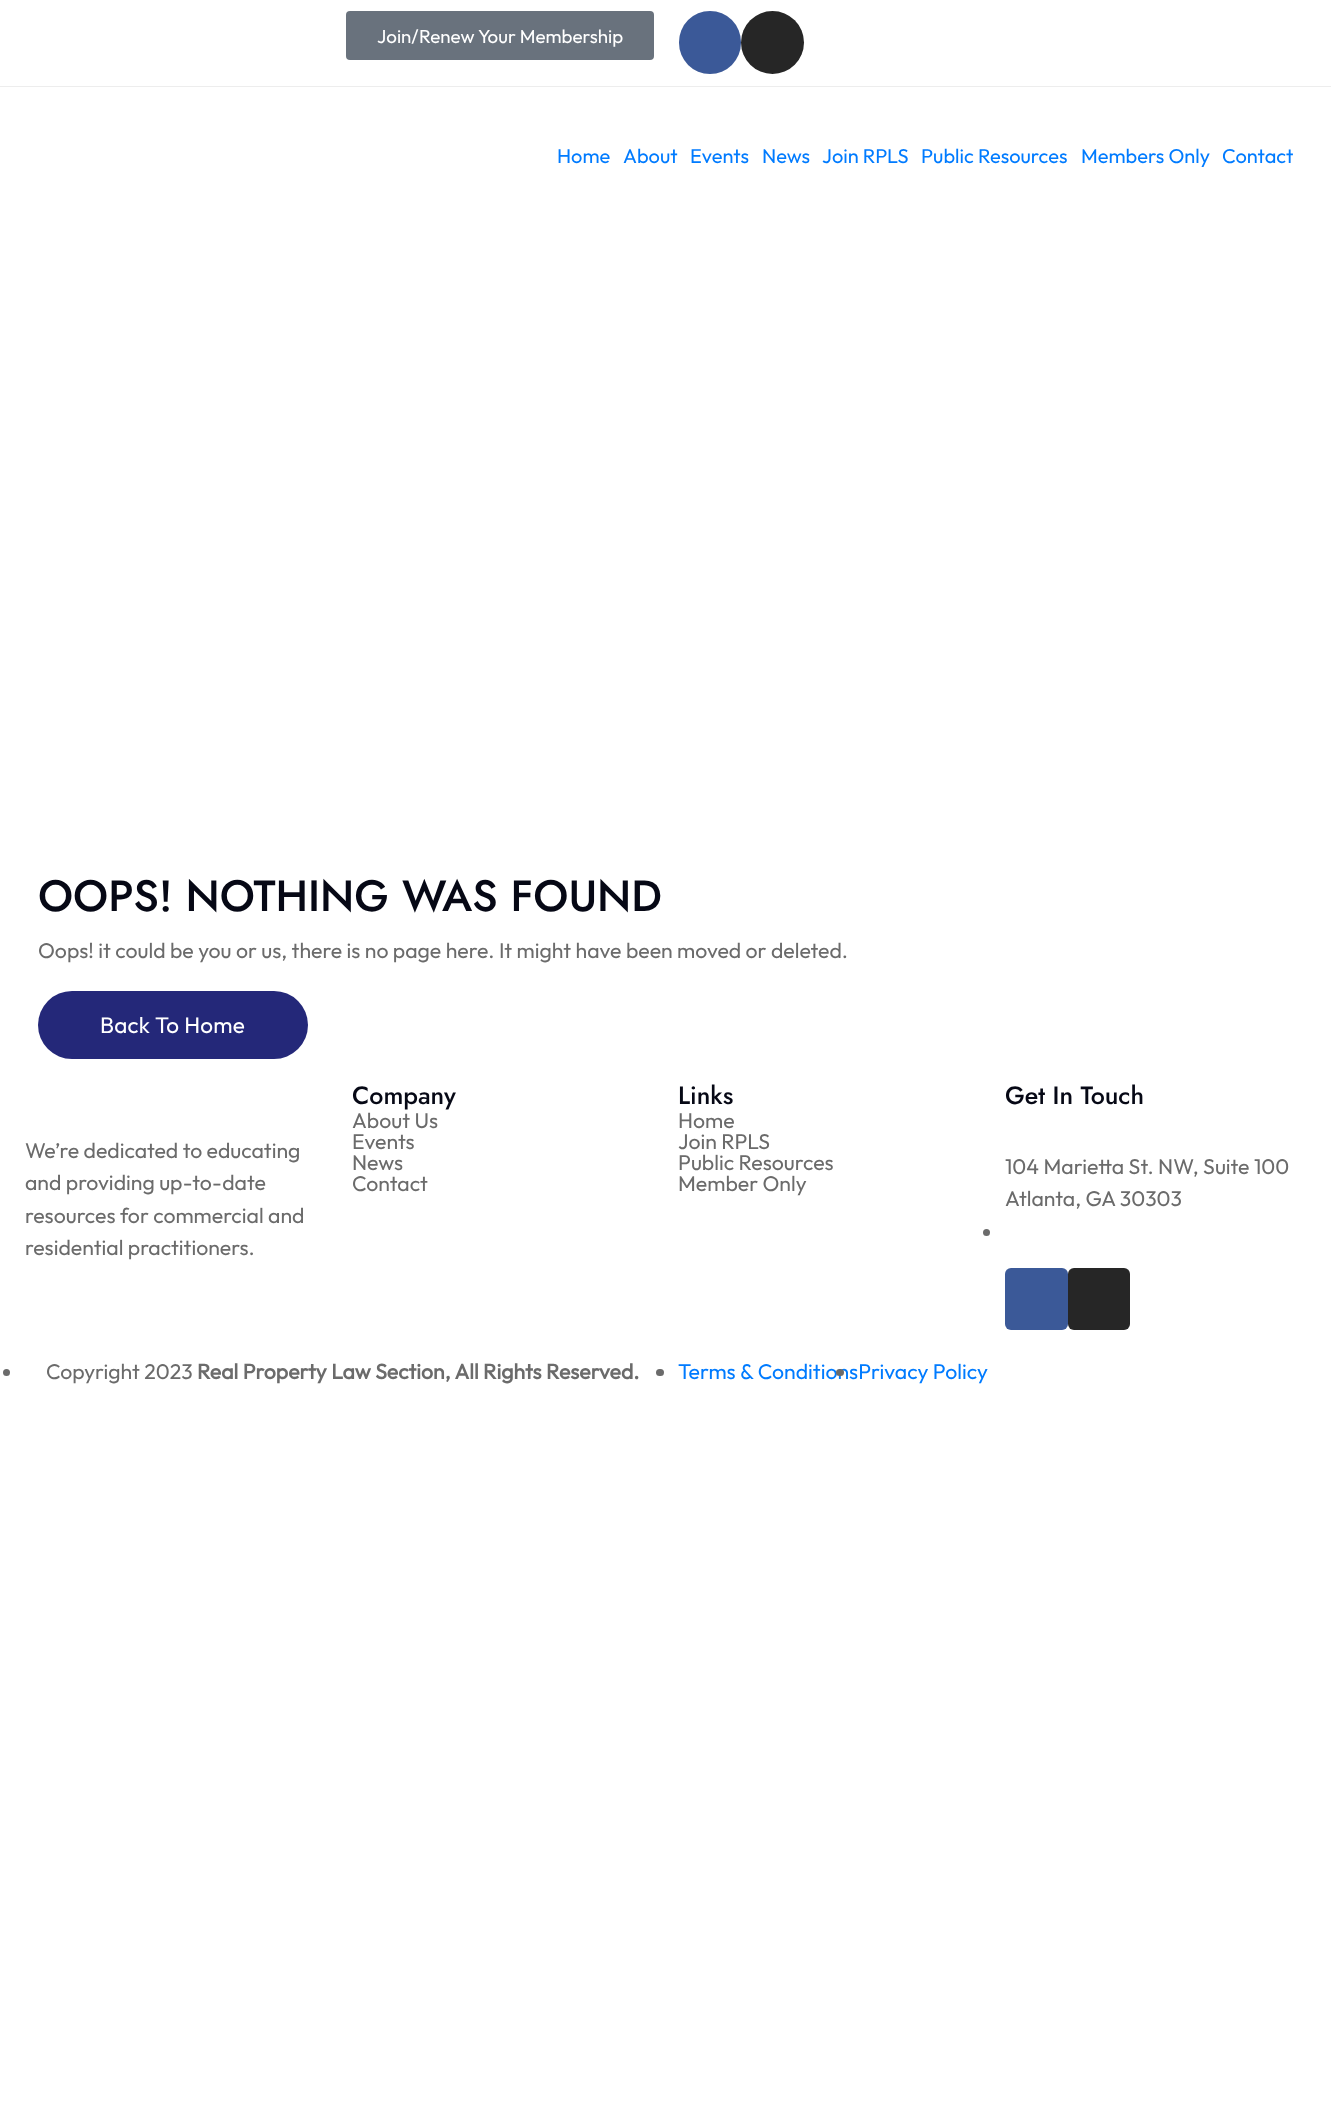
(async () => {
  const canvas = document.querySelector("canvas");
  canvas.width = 1331;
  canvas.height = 2127;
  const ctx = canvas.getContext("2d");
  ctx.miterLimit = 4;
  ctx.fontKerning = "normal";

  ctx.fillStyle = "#ffffff";
  ctx.fillRect(0, 0, 1331, 2127);
  ctx.fillStyle = "#ededed";
  ctx.fillRect(0, 86, 1331, 1);
  ctx.fillStyle = "#69727d";
  ctx.beginPath();
  ctx.roundRect(346, 11, 308, 49, 4);
  ctx.fill();
  ctx.fillStyle = "#3b5998";
  ctx.beginPath();
  ctx.roundRect(679, 11, 62, 63, 31);
  ctx.fill();
  ctx.fillStyle = "#262626";
  ctx.beginPath();
  ctx.arc(772.5, 42.5, 31.5, 0, Math.PI * 2);
  ctx.fill();
  ctx.fillStyle = "#242879";
  ctx.beginPath();
  ctx.roundRect(38, 991, 270, 68, 34);
  ctx.fill();
  ctx.fillStyle = "#6b6b6b";
  ctx.beginPath();
  ctx.arc(986.5, 1232.5, 3.5, 0, Math.PI * 2);
  ctx.fill();
  ctx.fillStyle = "#3b5998";
  ctx.beginPath();
  ctx.roundRect(1005, 1268, 63, 62, 6);
  ctx.fill();
  ctx.fillStyle = "#262626";
  ctx.beginPath();
  ctx.roundRect(1068, 1268, 62, 62, 6);
  ctx.fill();
  ctx.fillStyle = "#6b6b6b";
  ctx.beginPath();
  ctx.arc(6.5, 1372.5, 3.5, 0, Math.PI * 2);
  ctx.fill();
  ctx.beginPath();
  ctx.roundRect(656, 1369, 8, 7, 3.5);
  ctx.fill();
  ctx.font = "100 18.75px Outfit";
  ctx.fillStyle = "#ffffff";
  ctx.fillText("Join/Renew Your Membership", 377, 43);
  ctx.font = "100 20px Outfit";
  ctx.fillStyle = "#007bff";
  for (const [text, x, y] of [
    ["Home", 557, 163],
    ["About", 623, 163],
    ["Events", 690, 163],
    ["News", 762, 163],
    ["Join RPLS", 822, 163],
    ["Public Resources", 921, 163],
    ["Members Only", 1081, 163],
    ["Contact", 1222, 163],
  ]) {
    ctx.fillText(text, x, y);
  }
  ctx.letterSpacing = "-0.05px";
  ctx.font = "500 43.75px Jost";
  ctx.fillStyle = "#060815";
  ctx.fillText("OOPS! NOTHING WAS FOUND", 38, 911);
  ctx.letterSpacing = "0px";
  ctx.font = "100 21.25px Outfit";
  ctx.fillStyle = "#6b6b6b";
  ctx.fillText("Oops! it could be you or us, there is no page here. It might have been moved or deleted.", 38, 958);
  ctx.letterSpacing = "0.25px";
  ctx.font = "100 22.5px Outfit";
  ctx.fillStyle = "#ffffff";
  ctx.fillText("Back To Home", 100, 1033);
  ctx.letterSpacing = "0px";
  ctx.font = "100 21.25px Outfit";
  ctx.fillStyle = "#6b6b6b";
  for (const [text, x, y] of [
    ["We’re dedicated to educating", 25, 1158],
    ["and providing up-to-date", 25, 1190],
    ["resources for commercial and", 25, 1223],
    ["residential practitioners.", 25, 1255],
  ]) {
    ctx.fillText(text, x, y);
  }
  ctx.font = "500 25px Jost";
  ctx.fillStyle = "#060815";
  ctx.fillText("Company", 352, 1104);
  ctx.font = "100 21.25px Outfit";
  ctx.fillStyle = "#6b6b6b";
  for (const [text, x, y] of [
    ["About Us", 352, 1128],
    ["Events", 352, 1149],
    ["News", 352, 1170],
    ["Contact", 352, 1191],
  ]) {
    ctx.fillText(text, x, y);
  }
  ctx.font = "500 25px Jost";
  ctx.fillStyle = "#060815";
  ctx.fillText("Links", 678, 1104);
  ctx.font = "100 21.25px Outfit";
  ctx.fillStyle = "#6b6b6b";
  for (const [text, x, y] of [
    ["Home", 678, 1128],
    ["Join RPLS", 678, 1149],
    ["Public Resources", 678, 1170],
    ["Member Only", 678, 1191],
  ]) {
    ctx.fillText(text, x, y);
  }
  ctx.font = "500 25px Jost";
  ctx.fillStyle = "#060815";
  ctx.fillText("Get In Touch", 1005, 1104);
  ctx.font = "100 21.25px Outfit";
  ctx.fillStyle = "#6b6b6b";
  for (const [text, x, y] of [
    ["104 Marietta St. NW, Suite 100", 1005, 1174],
    ["Atlanta, GA 30303", 1005, 1206],
    ["Copyright 2023", 46, 1379],
  ]) {
    ctx.fillText(text, x, y);
  }
  ctx.font = "bold 21.25px Outfit";
  ctx.fillText("Real Property Law Section, All Rights Reserved.", 197, 1379);
  ctx.font = "100 21.25px Outfit";
  ctx.fillStyle = "#007bff";
  ctx.fillText("Terms & ConditionsPrivacy Policy", 678, 1379);
  ctx.fillStyle = "#6b6b6b";
  ctx.beginPath();
  ctx.roundRect(836, 1369, 8, 7, 3.5);
  ctx.fill();
})();
